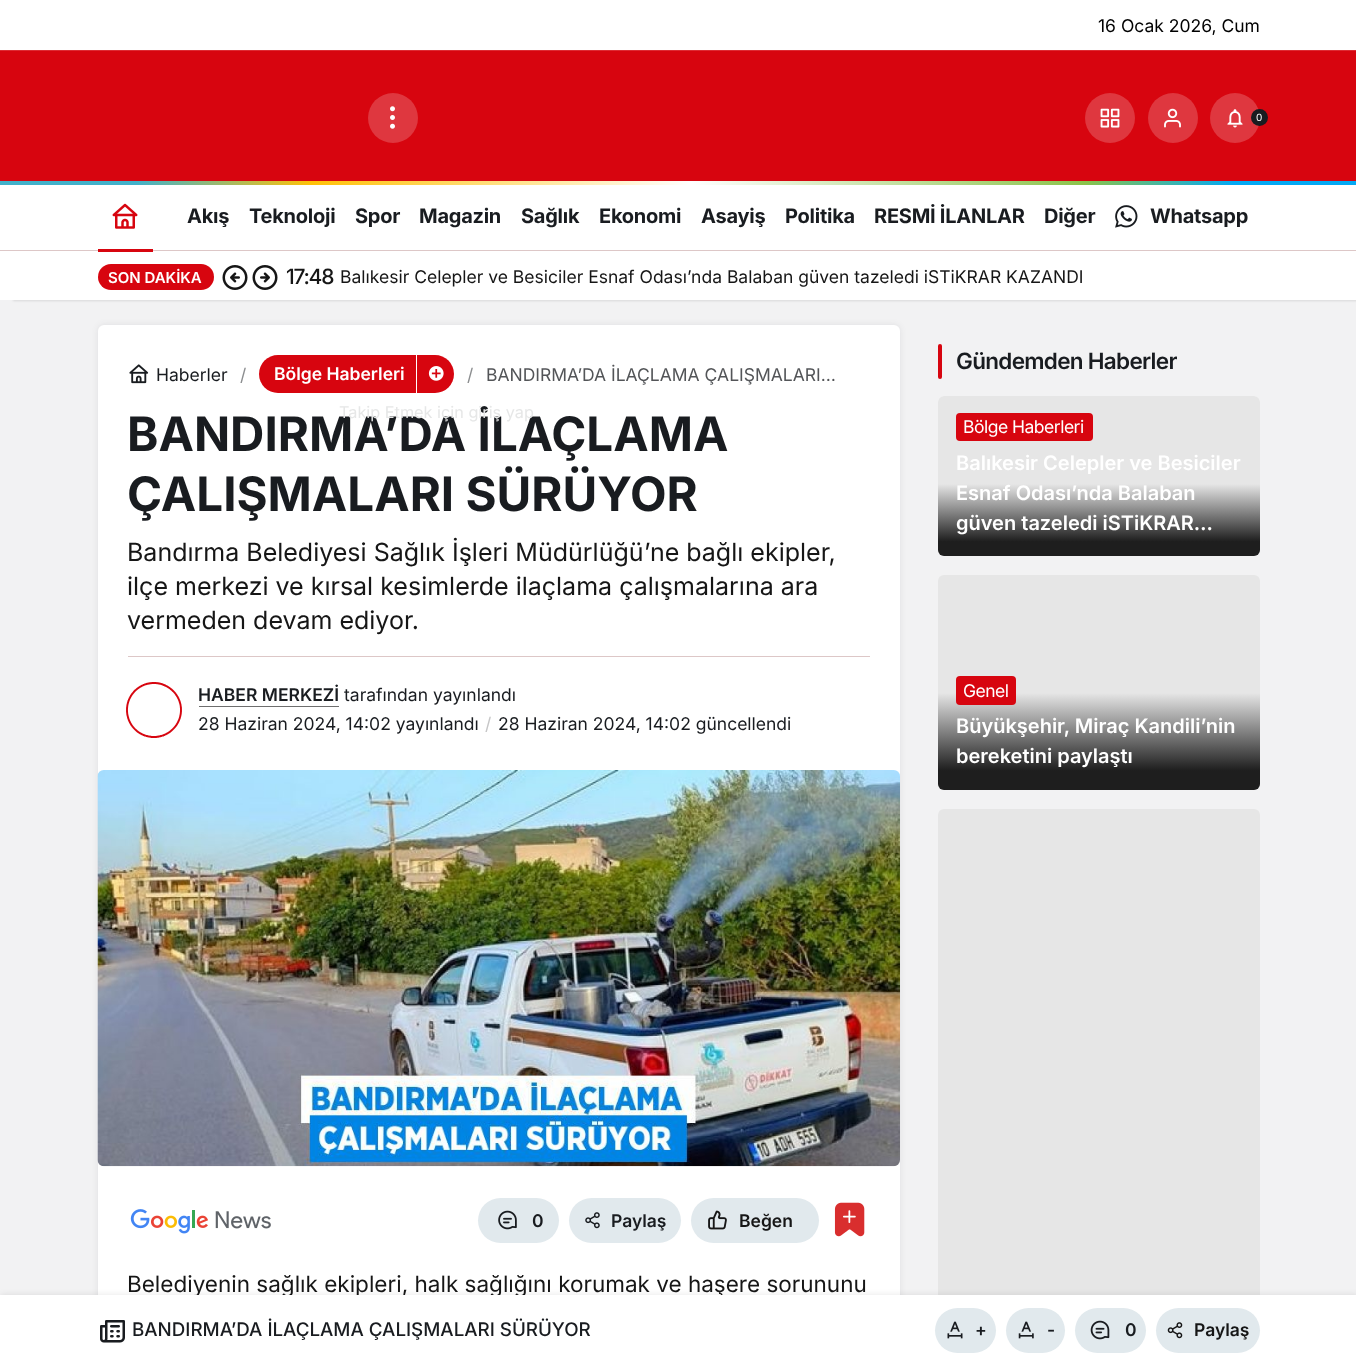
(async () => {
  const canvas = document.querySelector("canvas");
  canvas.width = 1356;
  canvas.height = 1367;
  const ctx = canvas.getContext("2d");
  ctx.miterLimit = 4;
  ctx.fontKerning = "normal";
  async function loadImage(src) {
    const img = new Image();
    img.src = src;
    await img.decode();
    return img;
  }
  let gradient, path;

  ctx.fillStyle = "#f2f2f3";
  ctx.fillRect(0, 0, 1356, 1367);
  for (const [x, y, w, h, color] of [
    [0, 51, 1356, 130, "#d7050f"],
    [0, 0, 1356, 50, "#ffffff"],
    [0, 50, 1356, 1, "#dd2b33"],
  ]) {
    ctx.fillStyle = color;
    ctx.fillRect(x, y, w, h);
  }
  ctx.fillStyle = "#df373f";
  ctx.beginPath();
  ctx.arc(393, 118, 25, 0, Math.PI * 2);
  ctx.fill();
  ctx.drawImage(await loadImage("img/1.png"), 390, 106, 5, 23);
  ctx.beginPath();
  ctx.arc(1110, 118, 25, 0, Math.PI * 2);
  ctx.fill();
  ctx.drawImage(await loadImage("img/2.png"), 1100, 108, 20, 20);
  ctx.beginPath();
  ctx.arc(1173, 118, 25, 0, Math.PI * 2);
  ctx.fill();
  ctx.drawImage(await loadImage("img/3.png"), 1164, 108, 17, 20);
  ctx.beginPath();
  ctx.arc(1235, 118, 25, 0, Math.PI * 2);
  ctx.fill();
  ctx.drawImage(await loadImage("img/4.png"), 1227, 109, 16, 19);
  ctx.fillStyle = "#191c20";
  ctx.beginPath();
  ctx.arc(1259.5, 117.5, 8.5, 0, Math.PI * 2);
  ctx.fill();
  ctx.fillStyle = "rgba(0, 0, 0, 0.1)";
  ctx.filter = "blur(1px)";
  ctx.beginPath();
  ctx.rect(13, 251, 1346, 50);
  ctx.fill();
  ctx.filter = "none";
  ctx.fillStyle = "#ffffff";
  ctx.fillRect(0, 185, 1356, 65);
  gradient = ctx.createLinearGradient(0, 183, 1356, 183);
  gradient.addColorStop(0.1, "#42b1ca");
  gradient.addColorStop(0.23, "#ffc107");
  gradient.addColorStop(0.51, "#ffffff");
  gradient.addColorStop(0.8, "#8bc34a");
  gradient.addColorStop(0.91, "#03a9f4");
  ctx.fillStyle = gradient;
  ctx.fillRect(0, 181, 1356, 4);
  ctx.drawImage(await loadImage("img/5.png"), 112, 203, 26, 26);
  for (const [x, y, w, h, color] of [
    [0, 251, 1356, 49, "#ffffff"],
    [0, 250, 1356, 1, "#ddc7c7"],
    [98, 249, 55, 3, "#d7050f"],
  ]) {
    ctx.fillStyle = color;
    ctx.fillRect(x, y, w, h);
  }
  ctx.drawImage(await loadImage("img/6.png"), 1115, 205, 23, 23);
  ctx.beginPath();
  ctx.roundRect(98, 264, 116, 26, 13);
  ctx.fill();
  ctx.drawImage(await loadImage("img/7.png"), 222, 265, 26, 25);
  ctx.drawImage(await loadImage("img/8.png"), 252, 265, 26, 25);
  ctx.beginPath();
  ctx.roundRect(938, 344, 4, 35, 2);
  ctx.fill();
  ctx.save();
  ctx.beginPath();
  ctx.roundRect(938, 396, 322, 160, 6);
  ctx.clip();
  ctx.fillStyle = "#e6e6e6";
  ctx.beginPath();
  ctx.roundRect(938, 396, 322, 159, [6, 6, 0, 0]);
  ctx.fill();
  ctx.restore();
  gradient = ctx.createLinearGradient(1099, 484, 1099, 556);
  gradient.addColorStop(0, "rgba(30, 30, 30, 0)");
  gradient.addColorStop(0.8, "#1e1e1e");
  ctx.fillStyle = gradient;
  ctx.beginPath();
  ctx.roundRect(938, 484, 322, 72, [0, 0, 6, 6]);
  ctx.fill();
  ctx.fillStyle = "#d7050f";
  ctx.beginPath();
  ctx.roundRect(956, 413, 137, 28, 4);
  ctx.fill();
  ctx.fillStyle = "#e6e6e6";
  ctx.beginPath();
  ctx.roundRect(938, 575, 322, 215, 6);
  ctx.fill();
  gradient = ctx.createLinearGradient(1099, 693, 1099, 790);
  gradient.addColorStop(0, "rgba(30, 30, 30, 0)");
  gradient.addColorStop(0.8, "#1e1e1e");
  ctx.fillStyle = gradient;
  ctx.beginPath();
  ctx.roundRect(938, 693, 322, 97, [0, 0, 6, 6]);
  ctx.fill();
  ctx.fillStyle = "#d7050f";
  ctx.beginPath();
  ctx.roundRect(956, 676, 60, 29, 4);
  ctx.fill();
  ctx.fillStyle = "#e6e6e6";
  ctx.beginPath();
  ctx.roundRect(938, 809, 322, 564, 6);
  ctx.fill();
  ctx.fillStyle = "rgba(50, 53, 61, 0.1)";
  ctx.filter = "blur(3px)";
  ctx.beginPath();
  ctx.roundRect(98, 325, 802, 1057, 6);
  ctx.fill();
  ctx.filter = "none";
  ctx.fillStyle = "#ffffff";
  ctx.beginPath();
  ctx.roundRect(98, 325, 802, 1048, 6);
  ctx.fill();
  ctx.drawImage(await loadImage("img/9.png"), 129, 364, 20, 20);
  ctx.fillStyle = "#d7050f";
  ctx.beginPath();
  ctx.roundRect(259, 355, 161, 38, [19, 0, 0, 19]);
  ctx.fill();
  ctx.beginPath();
  ctx.roundRect(416, 355, 38, 38, [0, 19, 19, 0]);
  ctx.fill();
  ctx.fillStyle = "#ffffff";
  ctx.fillRect(416, 355, 1, 38);
  ctx.drawImage(await loadImage("img/10.png"), 428, 366, 16, 15);
  ctx.fillStyle = "#ddc7c7";
  ctx.fillRect(128, 656, 742, 1);
  path = new Path2D("M154 683C168.5 683 181 695 181 710C181 725 168.5 737 154 737C139 737 127 725 127 710C127 695 139 683 154 683Z");
  ctx.strokeStyle = "#d7050f";
  ctx.lineWidth = 2;
  ctx.lineCap = "round";
  ctx.setLineDash([0.68, 0.68]);
  ctx.stroke(path);
  ctx.fillStyle = "#6e6e6e";
  ctx.fillRect(199, 706, 140, 1);
  ctx.drawImage(await loadImage("img/11.png"), 97, 770, 803, 397);
  ctx.drawImage(await loadImage("img/12.png"), 130, 1209, 141, 25);
  ctx.fillStyle = "#e1e9ed";
  ctx.beginPath();
  ctx.roundRect(478, 1198, 81, 45, 22.5);
  ctx.fill();
  ctx.drawImage(await loadImage("img/13.png"), 498, 1210, 19, 20);
  ctx.beginPath();
  ctx.roundRect(569, 1198, 112, 45, 22.5);
  ctx.fill();
  ctx.drawImage(await loadImage("img/14.png"), 585, 1212, 15, 17);
  ctx.beginPath();
  ctx.roundRect(691, 1198, 128, 45, 22.5);
  ctx.fill();
  ctx.drawImage(await loadImage("img/15.png"), 708, 1210, 19, 20);
  ctx.drawImage(await loadImage("img/16.png"), 834, 1202, 31, 35);
  ctx.fillStyle = "rgba(0, 0, 0, 0.1)";
  ctx.filter = "blur(3px)";
  ctx.beginPath();
  ctx.rect(1, 1295, 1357, 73);
  ctx.fill();
  ctx.filter = "none";
  ctx.font = "17.5px Inter";
  ctx.fillStyle = "#000000";
  ctx.fillText("16 Ocak 2026, Cum", 1098, 32);
  ctx.font = "10px Inter";
  ctx.fillStyle = "#ffffff";
  ctx.fillText("0", 1256, 121);
  ctx.letterSpacing = "-0.25px";
  ctx.font = "bold 20px Inter";
  ctx.fillStyle = "#191c20";
  for (const [text, x, y] of [
    ["Akış", 187, 223],
    ["Teknoloji", 249, 223],
    ["Spor", 355, 223],
    ["Magazin", 419, 223],
    ["Sağlık", 521, 223],
    ["Ekonomi", 599, 223],
    ["Asayiş", 701, 223],
    ["Politika", 785, 223],
    ["RESMİ İLANLAR", 874, 223],
    ["Diğer", 1044, 223],
    ["Whatsapp", 1150, 223],
  ]) {
    ctx.fillText(text, x, y);
  }
  ctx.letterSpacing = "0px";
  ctx.font = "600 15px Inter";
  ctx.fillStyle = "#ffffff";
  ctx.fillText("SON DAKİKA", 108, 283);
  ctx.letterSpacing = "-1.25px";
  ctx.font = "500 21px Inter";
  ctx.fillStyle = "#161616";
  ctx.fillText("17:48", 286, 284);
  ctx.letterSpacing = "0px";
  ctx.font = "17.5px Inter";
  ctx.fillText("Balıkesir Celepler ve Besiciler Esnaf Odası’nda Balaban güven tazeledi iSTiKRAR KAZANDI", 340, 283);
  ctx.letterSpacing = "-0.7px";
  ctx.font = "600 22.5px Inter";
  ctx.fillStyle = "#191c20";
  ctx.fillText("Gündemden Haberler", 956, 369);
  ctx.letterSpacing = "-0.5px";
  ctx.font = "17.5px Inter";
  ctx.fillStyle = "#ffffff";
  ctx.fillText("Bölge Haberleri", 963, 433);
  ctx.letterSpacing = "0px";
  ctx.font = "600 20px Inter";
  for (const [text, x, y] of [
    ["Balıkesir Celepler ve Besiciler", 956, 470],
    ["Esnaf Odası’nda Balaban", 956, 500],
    ["güven tazeledi iSTiKRAR…", 956, 530],
  ]) {
    ctx.fillText(text, x, y);
  }
  ctx.letterSpacing = "-0.5px";
  ctx.font = "17.5px Inter";
  ctx.fillText("Genel", 963, 697);
  ctx.letterSpacing = "0px";
  ctx.font = "600 20px Inter";
  ctx.fillText("Büyükşehir, Miraç Kandili’nin", 956, 733);
  ctx.fillText("bereketini paylaştı", 956, 763);
  ctx.font = "17.5px Inter";
  ctx.fillStyle = "#191c20";
  ctx.fillText("Haberler", 156, 381);
  ctx.fillStyle = "#8c8e90";
  ctx.fillText("/", 240, 381);
  ctx.font = "600 17.5px Inter";
  ctx.fillStyle = "#ffffff";
  ctx.fillText("Bölge Haberleri", 274, 380);
  ctx.font = "17.5px Inter";
  ctx.fillStyle = "#8c8e90";
  ctx.fillText("/", 467, 381);
  ctx.fillStyle = "#535558";
  ctx.fillText("BANDIRMA’DA İLAÇLAMA ÇALIŞMALARI…", 486, 381);
  ctx.font = "bold 47.5px Inter";
  ctx.fillStyle = "#191c20";
  ctx.fillText("BANDIRMA’DA İLAÇLAMA", 127, 451);
  ctx.font = "16.25px Inter";
  ctx.fillStyle = "#e6e7e7";
  ctx.fillText("Takip Etmek için giriş yap", 339, 418);
  ctx.font = "bold 47.5px Inter";
  ctx.fillStyle = "#191c20";
  ctx.fillText("ÇALIŞMALARI SÜRÜYOR", 127, 511);
  ctx.font = "25px Inter";
  ctx.fillStyle = "#161616";
  for (const [text, x, y] of [
    ["Bandırma Belediyesi Sağlık İşleri Müdürlüğü’ne bağlı ekipler,", 127, 561],
    ["ilçe merkezi ve kırsal kesimlerde ilaçlama çalışmalarına ara", 127, 595],
    ["vermeden devam ediyor.", 127, 629],
  ]) {
    ctx.fillText(text, x, y);
  }
  ctx.font = "600 17.5px Inter";
  ctx.fillStyle = "#191c20";
  ctx.fillText("HABER MERKEZİ", 198, 701);
  ctx.font = "17.5px Inter";
  ctx.fillText("tarafından yayınlandı", 344, 701);
  ctx.fillText("28 Haziran 2024, 14:02 yayınlandı", 198, 730);
  ctx.fillStyle = "#c6c6c7";
  ctx.fillText("/", 485, 730);
  ctx.fillStyle = "#191c20";
  ctx.fillText("28 Haziran 2024, 14:02 güncellendi", 498, 730);
  ctx.font = "600 17.5px Inter";
  ctx.fillText("0", 532, 1227);
  ctx.fillText("Paylaş", 611, 1227);
  ctx.fillStyle = "#161616";
  ctx.fillText("Beğen", 739, 1227);
  ctx.font = "22.5px Inter";
  ctx.fillText("Belediyenin sağlık ekipleri, halk sağlığını korumak ve haşere sorununu", 127, 1292);
  ctx.fillStyle = "#ffffff";
  ctx.fillRect(0, 1295, 1356, 72);
  ctx.drawImage(await loadImage("img/17.png"), 100, 1320, 25, 23);
  ctx.font = "500 18.75px Inter";
  ctx.fillStyle = "#191c20";
  ctx.fillText("BANDIRMA’DA İLAÇLAMA ÇALIŞMALARI SÜRÜYOR", 132, 1336);
  ctx.fillStyle = "#e1e9ed";
  ctx.beginPath();
  ctx.roundRect(935, 1308, 61, 45, 22.5);
  ctx.fill();
  ctx.drawImage(await loadImage("img/18.png"), 947, 1321, 16, 18);
  ctx.font = "600 17.5px Inter";
  ctx.fillStyle = "#191c20";
  ctx.fillText("+", 975, 1336);
  ctx.fillStyle = "#e1e9ed";
  ctx.beginPath();
  ctx.roundRect(1006, 1308, 59, 45, 22.5);
  ctx.fill();
  ctx.drawImage(await loadImage("img/19.png"), 1018, 1321, 16, 18);
  ctx.fillStyle = "#191c20";
  ctx.fillText("-", 1047, 1336);
  ctx.fillStyle = "#e1e9ed";
  ctx.beginPath();
  ctx.roundRect(1075, 1308, 71, 45, 22.5);
  ctx.fill();
  ctx.drawImage(await loadImage("img/20.png"), 1090, 1320, 20, 20);
  ctx.fillStyle = "#191c20";
  ctx.fillText("0", 1125, 1336);
  ctx.fillStyle = "#e1e9ed";
  ctx.beginPath();
  ctx.roundRect(1156, 1308, 104, 45, 22.5);
  ctx.fill();
  ctx.drawImage(await loadImage("img/21.png"), 1167, 1322, 16, 17);
  ctx.fillStyle = "#161616";
  ctx.fillText("Paylaş", 1194, 1336);
})();
